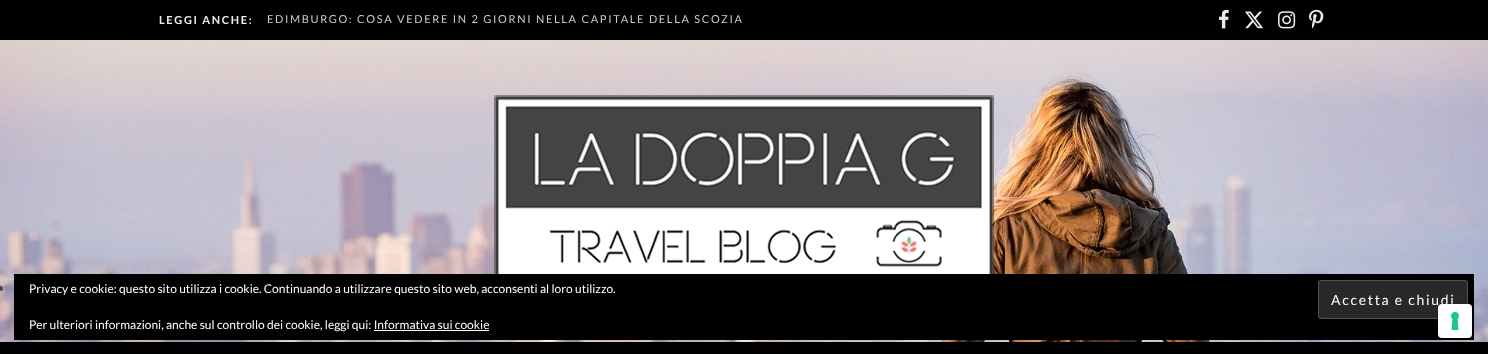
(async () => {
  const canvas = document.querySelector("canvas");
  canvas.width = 1488;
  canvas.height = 354;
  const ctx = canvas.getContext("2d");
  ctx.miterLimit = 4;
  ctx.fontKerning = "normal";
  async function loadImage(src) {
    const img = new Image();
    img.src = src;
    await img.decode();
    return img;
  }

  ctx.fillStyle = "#000000";
  ctx.fillRect(0, 0, 1488, 354);
  ctx.drawImage(await loadImage("img/1.png"), 1219, 9, 10, 20);
  ctx.drawImage(await loadImage("img/2.png"), 1245, 11, 19, 18);
  ctx.drawImage(await loadImage("img/3.png"), 1278, 11, 18, 18);
  ctx.drawImage(await loadImage("img/4.png"), 1309, 9, 15, 20);
  ctx.drawImage(await loadImage("img/5.png"), 0, 40, 1488, 302);
  ctx.drawImage(await loadImage("img/6.png"), 494, 95, 500, 179);
  ctx.fillStyle = "#494949";
  ctx.beginPath();
  ctx.arc(0.5, 288.5, 2.5, 0, Math.PI * 2);
  ctx.fill();
  ctx.fillStyle = "#000000";
  ctx.fillRect(14, 274, 1460, 66);
  ctx.fillStyle = "#282828";
  ctx.beginPath();
  ctx.roundRect(1318.5, 280.5, 149, 38, 2.5);
  ctx.fill();
  ctx.strokeStyle = "#535353";
  ctx.stroke();
  ctx.fillStyle = "#ffffff";
  ctx.fillRect(374, 330, 115, 1);
  ctx.letterSpacing = "1.65px";
  ctx.font = "bold 11px Lato";
  ctx.fillStyle = "#ebebeb";
  ctx.fillText("LEGGI ANCHE:", 159, 24);
  ctx.font = "11px Lato";
  ctx.fillStyle = "#cccccc";
  ctx.fillText("EDIMBURGO: COSA VEDERE IN 2 GIORNI NELLA CAPITALE DELLA SCOZIA", 267, 23);
  ctx.letterSpacing = "0px";
  ctx.font = "12px Lato";
  ctx.fillStyle = "#ffffff";
  ctx.fillText("Privacy e cookie: questo sito utilizza i cookie. Continuando a utilizzare questo sito web, acconsenti al loro utilizzo.", 29, 293);
  ctx.letterSpacing = "1.7px";
  ctx.font = "14px Lato";
  ctx.fillText("Accetta e chiudi", 1331, 305);
  ctx.letterSpacing = "0px";
  ctx.font = "12px Lato";
  ctx.fillText("Per ulteriori informazioni, anche sul controllo dei cookie, leggi qui: Informativa sui cookie", 29, 329);
  ctx.beginPath();
  ctx.roundRect(1437.5, 303.5, 35, 35, 4.5);
  ctx.strokeStyle = "rgba(0, 0, 0, 0.15)";
  ctx.stroke();
  ctx.beginPath();
  ctx.roundRect(1438, 304, 34, 34, 4);
  ctx.fill();
  ctx.drawImage(await loadImage("img/7.png"), 1451, 312, 8, 18);
})();
